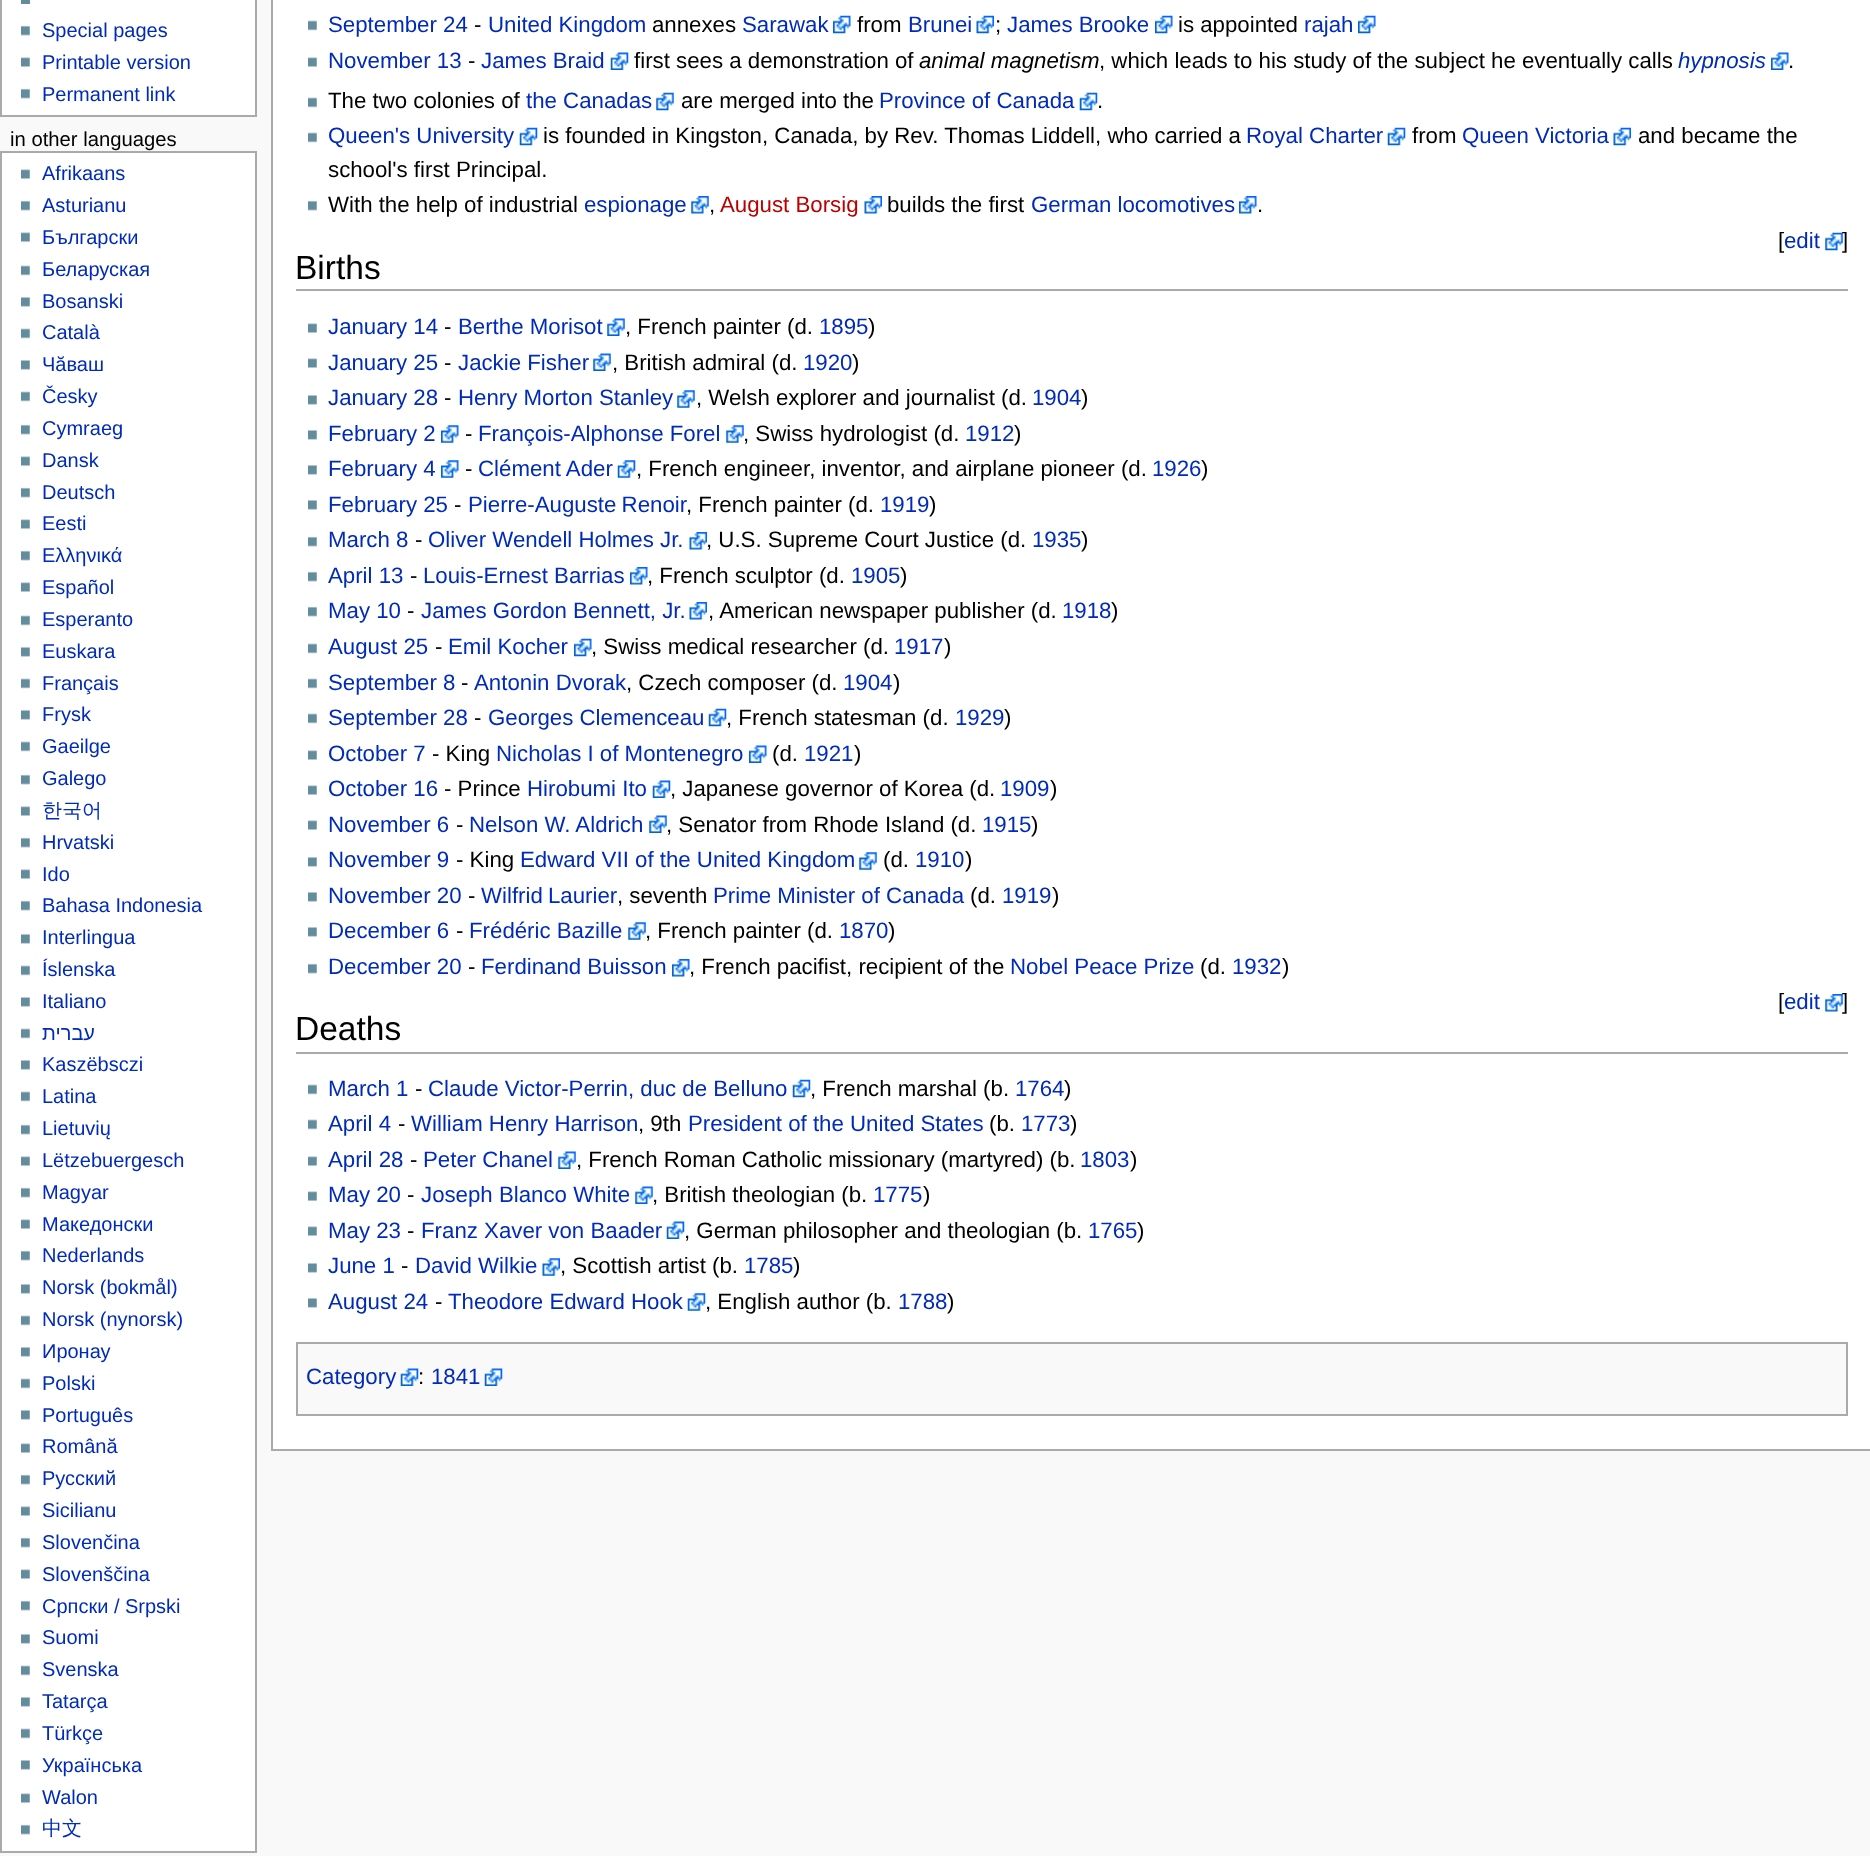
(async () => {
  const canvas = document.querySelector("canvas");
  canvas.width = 1870;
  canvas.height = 1856;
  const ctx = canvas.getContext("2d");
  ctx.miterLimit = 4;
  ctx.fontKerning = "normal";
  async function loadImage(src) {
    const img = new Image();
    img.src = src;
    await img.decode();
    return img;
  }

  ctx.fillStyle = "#f9f9f9";
  ctx.fillRect(0, 0, 1870, 1856);
  ctx.fillStyle = "#ffffff";
  ctx.beginPath();
  ctx.rect(1, -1, 255, 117);
  ctx.fill();
  ctx.strokeStyle = "#aaaaaa";
  ctx.lineWidth = 2;
  ctx.stroke();
  ctx.fillStyle = "#638c9c";
  ctx.fillRect(21, 0, 9, 4);
  ctx.drawImage(await loadImage("img/1.png"), 21, 25, 9, 11);
  ctx.drawImage(await loadImage("img/2.png"), 21, 57, 9, 10);
  ctx.drawImage(await loadImage("img/1.png"), 21, 88, 9, 11);
  ctx.fillStyle = "#ffffff";
  ctx.beginPath();
  ctx.rect(1, 152, 255, 1700);
  ctx.fill();
  ctx.stroke();
  ctx.drawImage(await loadImage("img/2.png"), 21, 169, 9, 10);
  ctx.drawImage(await loadImage("img/1.png"), 21, 200, 9, 11);
  ctx.drawImage(await loadImage("img/2.png"), 21, 232, 9, 10);
  ctx.drawImage(await loadImage("img/3.png"), 21, 265, 9, 11);
  ctx.drawImage(await loadImage("img/4.png"), 21, 297, 9, 10);
  ctx.drawImage(await loadImage("img/3.png"), 21, 328, 9, 11);
  ctx.drawImage(await loadImage("img/4.png"), 21, 360, 9, 10);
  ctx.drawImage(await loadImage("img/3.png"), 21, 391, 9, 11);
  ctx.drawImage(await loadImage("img/1.png"), 21, 424, 9, 11);
  ctx.drawImage(await loadImage("img/2.png"), 21, 456, 9, 10);
  ctx.drawImage(await loadImage("img/1.png"), 21, 487, 9, 11);
  ctx.drawImage(await loadImage("img/2.png"), 21, 519, 9, 10);
  ctx.drawImage(await loadImage("img/1.png"), 21, 550, 9, 11);
  ctx.drawImage(await loadImage("img/2.png"), 21, 582, 9, 10);
  ctx.drawImage(await loadImage("img/3.png"), 21, 615, 9, 11);
  ctx.drawImage(await loadImage("img/4.png"), 21, 647, 9, 10);
  ctx.drawImage(await loadImage("img/3.png"), 21, 678, 9, 11);
  ctx.drawImage(await loadImage("img/4.png"), 21, 710, 9, 10);
  ctx.drawImage(await loadImage("img/3.png"), 21, 741, 9, 11);
  ctx.drawImage(await loadImage("img/1.png"), 21, 774, 9, 11);
  ctx.drawImage(await loadImage("img/2.png"), 21, 806, 9, 10);
  ctx.drawImage(await loadImage("img/1.png"), 21, 837, 9, 11);
  ctx.drawImage(await loadImage("img/2.png"), 21, 869, 9, 10);
  ctx.drawImage(await loadImage("img/1.png"), 21, 900, 9, 11);
  ctx.drawImage(await loadImage("img/4.png"), 21, 934, 9, 10);
  ctx.drawImage(await loadImage("img/3.png"), 21, 965, 9, 11);
  ctx.drawImage(await loadImage("img/5.png"), 21, 997, 9, 10);
  ctx.drawImage(await loadImage("img/3.png"), 21, 1028, 9, 11);
  ctx.drawImage(await loadImage("img/4.png"), 21, 1060, 9, 10);
  ctx.drawImage(await loadImage("img/3.png"), 21, 1091, 9, 11);
  ctx.drawImage(await loadImage("img/1.png"), 21, 1124, 9, 11);
  ctx.drawImage(await loadImage("img/2.png"), 21, 1156, 9, 10);
  ctx.drawImage(await loadImage("img/1.png"), 21, 1187, 9, 11);
  ctx.drawImage(await loadImage("img/2.png"), 21, 1219, 9, 10);
  ctx.drawImage(await loadImage("img/1.png"), 21, 1250, 9, 11);
  ctx.drawImage(await loadImage("img/4.png"), 21, 1284, 9, 10);
  ctx.drawImage(await loadImage("img/3.png"), 21, 1315, 9, 11);
  ctx.drawImage(await loadImage("img/4.png"), 21, 1347, 9, 10);
  ctx.drawImage(await loadImage("img/3.png"), 21, 1378, 9, 11);
  ctx.drawImage(await loadImage("img/4.png"), 21, 1410, 9, 10);
  ctx.drawImage(await loadImage("img/2.png"), 21, 1443, 9, 10);
  ctx.drawImage(await loadImage("img/1.png"), 21, 1474, 9, 11);
  ctx.drawImage(await loadImage("img/2.png"), 21, 1506, 9, 10);
  ctx.drawImage(await loadImage("img/1.png"), 21, 1537, 9, 11);
  ctx.drawImage(await loadImage("img/2.png"), 21, 1569, 9, 10);
  ctx.drawImage(await loadImage("img/1.png"), 21, 1600, 9, 11);
  ctx.drawImage(await loadImage("img/4.png"), 21, 1634, 9, 10);
  ctx.drawImage(await loadImage("img/3.png"), 21, 1665, 9, 11);
  ctx.drawImage(await loadImage("img/4.png"), 21, 1697, 9, 10);
  ctx.drawImage(await loadImage("img/3.png"), 21, 1728, 9, 11);
  ctx.drawImage(await loadImage("img/4.png"), 21, 1760, 9, 10);
  ctx.drawImage(await loadImage("img/2.png"), 21, 1793, 9, 10);
  ctx.drawImage(await loadImage("img/1.png"), 21, 1824, 9, 11);
  for (const [x, y, w, h, color] of [
    [273, 0, 1597, 1449, "#ffffff"],
    [271, 1449, 1599, 2, "#aaaaaa"],
    [271, 0, 2, 1451, "#aaaaaa"],
  ]) {
    ctx.fillStyle = color;
    ctx.fillRect(x, y, w, h);
  }
  ctx.drawImage(await loadImage("img/3.png"), 308, 20, 9, 11);
  ctx.drawImage(await loadImage("img/6.png"), 833, 15, 18, 19);
  ctx.drawImage(await loadImage("img/7.png"), 976, 15, 18, 19);
  ctx.drawImage(await loadImage("img/6.png"), 1155, 15, 18, 19);
  ctx.drawImage(await loadImage("img/6.png"), 1358, 15, 18, 19);
  ctx.drawImage(await loadImage("img/2.png"), 308, 57, 9, 10);
  ctx.drawImage(await loadImage("img/8.png"), 610, 52, 19, 18);
  ctx.drawImage(await loadImage("img/9.png"), 1771, 52, 18, 18);
  ctx.drawImage(await loadImage("img/3.png"), 308, 97, 9, 11);
  ctx.drawImage(await loadImage("img/10.png"), 656, 92, 18, 19);
  ctx.drawImage(await loadImage("img/11.png"), 1079, 92, 19, 19);
  ctx.drawImage(await loadImage("img/3.png"), 308, 132, 9, 11);
  ctx.drawImage(await loadImage("img/12.png"), 519, 127, 19, 19);
  ctx.drawImage(await loadImage("img/11.png"), 1387, 127, 19, 19);
  ctx.drawImage(await loadImage("img/7.png"), 1613, 127, 18, 19);
  ctx.drawImage(await loadImage("img/1.png"), 308, 200, 9, 11);
  ctx.drawImage(await loadImage("img/13.png"), 691, 196, 18, 18);
  ctx.drawImage(await loadImage("img/14.png"), 864, 196, 18, 18);
  ctx.drawImage(await loadImage("img/15.png"), 1239, 196, 18, 18);
  ctx.drawImage(await loadImage("img/16.png"), 1825, 232, 18, 19);
  ctx.fillRect(296, 289, 1552, 2);
  ctx.drawImage(await loadImage("img/2.png"), 308, 323, 9, 10);
  ctx.drawImage(await loadImage("img/17.png"), 607, 318, 18, 18);
  ctx.drawImage(await loadImage("img/2.png"), 308, 358, 9, 10);
  ctx.drawImage(await loadImage("img/17.png"), 593, 353, 18, 18);
  ctx.drawImage(await loadImage("img/4.png"), 308, 395, 9, 10);
  ctx.drawImage(await loadImage("img/18.png"), 677, 390, 18, 18);
  ctx.drawImage(await loadImage("img/4.png"), 308, 430, 9, 10);
  ctx.drawImage(await loadImage("img/19.png"), 441, 425, 18, 18);
  ctx.drawImage(await loadImage("img/20.png"), 726, 425, 18, 18);
  ctx.drawImage(await loadImage("img/4.png"), 308, 465, 9, 10);
  ctx.drawImage(await loadImage("img/19.png"), 441, 460, 18, 18);
  ctx.drawImage(await loadImage("img/21.png"), 617, 460, 19, 18);
  ctx.drawImage(await loadImage("img/4.png"), 308, 500, 9, 10);
  ctx.drawImage(await loadImage("img/1.png"), 308, 536, 9, 11);
  ctx.drawImage(await loadImage("img/14.png"), 689, 532, 18, 18);
  ctx.drawImage(await loadImage("img/1.png"), 308, 571, 9, 11);
  ctx.drawImage(await loadImage("img/22.png"), 630, 567, 18, 18);
  ctx.drawImage(await loadImage("img/1.png"), 308, 606, 9, 11);
  ctx.drawImage(await loadImage("img/14.png"), 689, 602, 18, 18);
  ctx.drawImage(await loadImage("img/3.png"), 308, 643, 9, 11);
  ctx.drawImage(await loadImage("img/6.png"), 574, 638, 18, 19);
  ctx.drawImage(await loadImage("img/3.png"), 308, 678, 9, 11);
  ctx.drawImage(await loadImage("img/3.png"), 308, 713, 9, 11);
  ctx.drawImage(await loadImage("img/11.png"), 708, 708, 19, 19);
  ctx.drawImage(await loadImage("img/2.png"), 308, 750, 9, 10);
  ctx.drawImage(await loadImage("img/9.png"), 749, 745, 18, 18);
  ctx.drawImage(await loadImage("img/2.png"), 308, 785, 9, 10);
  ctx.drawImage(await loadImage("img/8.png"), 652, 780, 19, 18);
  ctx.drawImage(await loadImage("img/2.png"), 308, 820, 9, 10);
  ctx.drawImage(await loadImage("img/17.png"), 649, 815, 18, 18);
  ctx.drawImage(await loadImage("img/4.png"), 308, 857, 9, 10);
  ctx.drawImage(await loadImage("img/18.png"), 859, 852, 18, 18);
  ctx.drawImage(await loadImage("img/4.png"), 308, 892, 9, 10);
  ctx.drawImage(await loadImage("img/4.png"), 308, 927, 9, 10);
  ctx.drawImage(await loadImage("img/18.png"), 628, 922, 18, 18);
  ctx.drawImage(await loadImage("img/1.png"), 308, 963, 9, 11);
  ctx.drawImage(await loadImage("img/15.png"), 672, 959, 18, 18);
  ctx.drawImage(await loadImage("img/23.png"), 1825, 994, 18, 18);
  ctx.fillRect(296, 1052, 1552, 2);
  ctx.drawImage(await loadImage("img/3.png"), 308, 1084, 9, 11);
  ctx.drawImage(await loadImage("img/11.png"), 792, 1079, 19, 19);
  ctx.drawImage(await loadImage("img/3.png"), 308, 1119, 9, 11);
  ctx.drawImage(await loadImage("img/2.png"), 308, 1156, 9, 10);
  ctx.drawImage(await loadImage("img/17.png"), 558, 1151, 18, 18);
  ctx.drawImage(await loadImage("img/24.png"), 308, 1191, 9, 10);
  ctx.drawImage(await loadImage("img/25.png"), 635, 1186, 18, 18);
  ctx.drawImage(await loadImage("img/2.png"), 308, 1226, 9, 10);
  ctx.drawImage(await loadImage("img/8.png"), 666, 1221, 19, 18);
  ctx.drawImage(await loadImage("img/4.png"), 308, 1263, 9, 10);
  ctx.drawImage(await loadImage("img/26.png"), 542, 1258, 18, 18);
  ctx.drawImage(await loadImage("img/4.png"), 308, 1298, 9, 10);
  ctx.drawImage(await loadImage("img/21.png"), 687, 1293, 19, 18);
  ctx.fillStyle = "#f9f9f9";
  ctx.beginPath();
  ctx.rect(297, 1343, 1550, 72);
  ctx.fill();
  ctx.stroke();
  ctx.drawImage(await loadImage("img/27.png"), 400, 1368, 19, 18);
  ctx.drawImage(await loadImage("img/27.png"), 484, 1368, 19, 18);
  ctx.font = "20px Liberation Sans";
  ctx.fillStyle = "#002bb8";
  for (const [text, x, y] of [
    ["Special pages", 42, 37],
    ["Printable version", 42, 69],
    ["Permanent link", 42, 101],
  ]) {
    ctx.fillText(text, x, y);
  }
  ctx.font = "20.25px Liberation Sans";
  ctx.fillStyle = "#000000";
  ctx.fillText("in other languages", 10, 146);
  ctx.font = "20px Liberation Sans";
  ctx.fillStyle = "#002bb8";
  for (const [text, x, y] of [
    ["Afrikaans", 42, 180],
    ["Asturianu", 42, 212],
    ["Български", 42, 244],
    ["Беларуская", 42, 276],
    ["Bosanski", 42, 308],
    ["Català", 42, 339],
    ["Чӑваш", 42, 371],
    ["Česky", 42, 403],
    ["Cymraeg", 42, 435],
    ["Dansk", 42, 467],
    ["Deutsch", 42, 499],
    ["Eesti", 42, 530],
    ["Ελληνικά", 42, 562],
    ["Español", 42, 594],
    ["Esperanto", 42, 626],
    ["Euskara", 42, 658],
    ["Français", 42, 690],
    ["Frysk", 42, 721],
    ["Gaeilge", 42, 753],
    ["Galego", 42, 785],
  ]) {
    ctx.fillText(text, x, y);
  }
  ctx.font = "500 20px WenQuanYi Zen Hei";
  ctx.fillText("한국어", 42, 817);
  ctx.font = "20px Liberation Sans";
  for (const [text, x, y] of [
    ["Hrvatski", 42, 849],
    ["Ido", 42, 881],
    ["Bahasa Indonesia", 42, 912],
    ["Interlingua", 42, 944],
    ["Íslenska", 42, 976],
    ["Italiano", 42, 1008],
  ]) {
    ctx.fillText(text, x, y);
  }
  ctx.direction = "rtl";
  ctx.fillText("עברית", 95, 1040);
  ctx.direction = "ltr";
  for (const [text, x, y] of [
    ["Kaszëbsczi", 42, 1071],
    ["Latina", 42, 1103],
    ["Lietuvių", 42, 1135],
    ["Lëtzebuergesch", 42, 1167],
    ["Magyar", 42, 1199],
    ["Македонски", 42, 1231],
    ["Nederlands", 42, 1262],
    ["Norsk (bokmål)", 42, 1294],
    ["Norsk (nynorsk)", 42, 1326],
    ["Иронау", 42, 1358],
    ["Polski", 42, 1390],
    ["Português", 42, 1422],
    ["Română", 42, 1453],
    ["Русский", 42, 1485],
    ["Sicilianu", 42, 1517],
    ["Slovenčina", 42, 1549],
    ["Slovenščina", 42, 1581],
    ["Српски / Srpski", 42, 1613],
    ["Suomi", 42, 1644],
    ["Svenska", 42, 1676],
    ["Tatarça", 42, 1708],
    ["Türkçe", 42, 1740],
    ["Українська", 42, 1772],
    ["Walon", 42, 1804],
  ]) {
    ctx.fillText(text, x, y);
  }
  ctx.font = "500 20px WenQuanYi Zen Hei";
  ctx.fillText("中文", 42, 1835);
  ctx.font = "22.25px Liberation Sans";
  ctx.fillText("September 24", 328, 32);
  ctx.fillStyle = "#000000";
  ctx.fillText("-", 474, 32);
  ctx.fillStyle = "#002bb8";
  ctx.fillText("United Kingdom", 488, 32);
  ctx.fillStyle = "#000000";
  ctx.fillText("annexes", 652, 32);
  ctx.fillStyle = "#002bb8";
  ctx.fillText("Sarawak", 742, 32);
  ctx.fillStyle = "#000000";
  ctx.fillText("from", 857, 32);
  ctx.fillStyle = "#002bb8";
  ctx.fillText("Brunei", 908, 32);
  ctx.fillStyle = "#000000";
  ctx.fillText(";", 995, 32);
  ctx.fillStyle = "#002bb8";
  ctx.fillText("James Brooke", 1007, 32);
  ctx.fillStyle = "#000000";
  ctx.fillText("is appointed", 1178, 32);
  ctx.fillStyle = "#002bb8";
  ctx.fillText("rajah", 1304, 32);
  ctx.fillText("November 13", 328, 68);
  ctx.fillStyle = "#000000";
  ctx.fillText("-", 468, 68);
  ctx.fillStyle = "#002bb8";
  ctx.fillText("James Braid", 481, 68);
  ctx.fillStyle = "#000000";
  ctx.fillText("first sees a demonstration of", 634, 68);
  ctx.font = "italic 22.25px Liberation Sans";
  ctx.fillText("animal magnetism", 919, 68);
  ctx.font = "22.25px Liberation Sans";
  ctx.fillText(", which leads to his study of the subject he eventually calls", 1099, 68);
  ctx.font = "italic 22.25px Liberation Sans";
  ctx.fillStyle = "#002bb8";
  ctx.fillText("hypnosis", 1678, 68);
  ctx.font = "22.25px Liberation Sans";
  ctx.fillStyle = "#000000";
  ctx.fillText(".", 1788, 68);
  ctx.fillText("The two colonies of", 328, 108);
  ctx.fillStyle = "#002bb8";
  ctx.fillText("the Canadas", 526, 108);
  ctx.fillStyle = "#000000";
  ctx.fillText("are merged into the", 681, 108);
  ctx.fillStyle = "#002bb8";
  ctx.fillText("Province of Canada", 879, 108);
  ctx.fillStyle = "#000000";
  ctx.fillText(".", 1097, 108);
  ctx.fillStyle = "#002bb8";
  ctx.fillText("Queen's University", 328, 143);
  ctx.fillStyle = "#000000";
  ctx.fillText("is founded in Kingston, Canada, by Rev. Thomas Liddell, who carried a", 543, 143);
  ctx.fillStyle = "#002bb8";
  ctx.fillText("Royal Charter", 1246, 143);
  ctx.fillStyle = "#000000";
  ctx.fillText("from", 1412, 143);
  ctx.fillStyle = "#002bb8";
  ctx.fillText("Queen Victoria", 1462, 143);
  ctx.fillStyle = "#000000";
  for (const [text, x, y] of [
    ["and became the", 1638, 143],
    ["school's first Principal.", 328, 177],
    ["With the help of industrial", 328, 212],
  ]) {
    ctx.fillText(text, x, y);
  }
  ctx.fillStyle = "#002bb8";
  ctx.fillText("espionage", 584, 212);
  ctx.fillStyle = "#000000";
  ctx.fillText(",", 709, 212);
  ctx.fillStyle = "#ba0000";
  ctx.fillText("August Borsig", 720, 212);
  ctx.fillStyle = "#000000";
  ctx.fillText("builds the first", 887, 212);
  ctx.fillStyle = "#002bb8";
  ctx.fillText("German locomotives", 1031, 212);
  ctx.fillStyle = "#000000";
  ctx.fillText(".", 1257, 212);
  ctx.fillText("[", 1778, 248);
  ctx.fillStyle = "#002bb8";
  ctx.fillText("edit", 1784, 248);
  ctx.fillStyle = "#000000";
  ctx.fillText("]", 1842, 248);
  ctx.font = "33.5px Liberation Sans";
  ctx.fillText("Births", 295, 279);
  ctx.font = "22.25px Liberation Sans";
  ctx.fillStyle = "#002bb8";
  ctx.fillText("January 14", 328, 334);
  ctx.fillStyle = "#000000";
  ctx.fillText("-", 444, 334);
  ctx.fillStyle = "#002bb8";
  ctx.fillText("Berthe Morisot", 458, 334);
  ctx.fillStyle = "#000000";
  ctx.fillText(", French painter (d.", 625, 334);
  ctx.fillStyle = "#002bb8";
  ctx.fillText("1895", 819, 334);
  ctx.fillStyle = "#000000";
  ctx.fillText(")", 868, 334);
  ctx.fillStyle = "#002bb8";
  ctx.fillText("January 25", 328, 370);
  ctx.fillStyle = "#000000";
  ctx.fillText("-", 444, 370);
  ctx.fillStyle = "#002bb8";
  ctx.fillText("Jackie Fisher", 458, 370);
  ctx.fillStyle = "#000000";
  ctx.fillText(", British admiral (d.", 612, 370);
  ctx.fillStyle = "#002bb8";
  ctx.fillText("1920", 803, 370);
  ctx.fillStyle = "#000000";
  ctx.fillText(")", 852, 370);
  ctx.fillStyle = "#002bb8";
  ctx.fillText("January 28", 328, 405);
  ctx.fillStyle = "#000000";
  ctx.fillText("-", 444, 405);
  ctx.fillStyle = "#002bb8";
  ctx.fillText("Henry Morton Stanley", 458, 405);
  ctx.fillStyle = "#000000";
  ctx.fillText(", Welsh explorer and journalist (d.", 696, 405);
  ctx.fillStyle = "#002bb8";
  ctx.fillText("1904", 1032, 405);
  ctx.fillStyle = "#000000";
  ctx.fillText(")", 1081, 405);
  ctx.fillStyle = "#002bb8";
  ctx.fillText("February 2", 328, 441);
  ctx.fillStyle = "#000000";
  ctx.fillText("-", 465, 441);
  ctx.fillStyle = "#002bb8";
  ctx.fillText("François-Alphonse Forel", 478, 441);
  ctx.fillStyle = "#000000";
  ctx.fillText(", Swiss hydrologist (d.", 743, 441);
  ctx.fillStyle = "#002bb8";
  ctx.fillText("1912", 965, 441);
  ctx.fillStyle = "#000000";
  ctx.fillText(")", 1014, 441);
  ctx.fillStyle = "#002bb8";
  ctx.fillText("February 4", 328, 476);
  ctx.fillStyle = "#000000";
  ctx.fillText("-", 465, 476);
  ctx.fillStyle = "#002bb8";
  ctx.fillText("Clément Ader", 478, 476);
  ctx.fillStyle = "#000000";
  ctx.fillText(", French engineer, inventor, and airplane pioneer (d.", 636, 476);
  ctx.fillStyle = "#002bb8";
  ctx.fillText("1926", 1152, 476);
  ctx.fillStyle = "#000000";
  ctx.fillText(")", 1201, 476);
  ctx.fillStyle = "#002bb8";
  ctx.fillText("February 25", 328, 512);
  ctx.fillStyle = "#000000";
  ctx.fillText("-", 454, 512);
  ctx.wordSpacing = "-1px";
  ctx.fillStyle = "#002bb8";
  ctx.fillText("Pierre-Auguste Renoir", 468, 512);
  ctx.wordSpacing = "0px";
  ctx.fillStyle = "#000000";
  ctx.fillText(", French painter (d.", 686, 512);
  ctx.fillStyle = "#002bb8";
  ctx.fillText("1919", 880, 512);
  ctx.fillStyle = "#000000";
  ctx.fillText(")", 929, 512);
  ctx.fillStyle = "#002bb8";
  ctx.fillText("March 8", 328, 547);
  ctx.fillStyle = "#000000";
  ctx.fillText("-", 415, 547);
  ctx.fillStyle = "#002bb8";
  ctx.fillText("Oliver Wendell Holmes Jr.", 428, 547);
  ctx.fillStyle = "#000000";
  ctx.fillText(", U.S. Supreme Court Justice (d.", 706, 547);
  ctx.fillStyle = "#002bb8";
  ctx.fillText("1935", 1032, 547);
  ctx.fillStyle = "#000000";
  ctx.fillText(")", 1081, 547);
  ctx.fillStyle = "#002bb8";
  ctx.fillText("April 13", 328, 583);
  ctx.fillStyle = "#000000";
  ctx.fillText("-", 410, 583);
  ctx.fillStyle = "#002bb8";
  ctx.fillText("Louis-Ernest Barrias", 423, 583);
  ctx.fillStyle = "#000000";
  ctx.fillText(", French sculptor (d.", 647, 583);
  ctx.fillStyle = "#002bb8";
  ctx.fillText("1905", 851, 583);
  ctx.fillStyle = "#000000";
  ctx.fillText(")", 900, 583);
  ctx.fillStyle = "#002bb8";
  ctx.fillText("May 10", 328, 618);
  ctx.fillStyle = "#000000";
  ctx.fillText("-", 407, 618);
  ctx.fillStyle = "#002bb8";
  ctx.fillText("James Gordon Bennett, Jr.", 421, 618);
  ctx.fillStyle = "#000000";
  ctx.fillText(", American newspaper publisher (d.", 708, 618);
  ctx.fillStyle = "#002bb8";
  ctx.fillText("1918", 1062, 618);
  ctx.fillStyle = "#000000";
  ctx.fillText(")", 1111, 618);
  ctx.fillStyle = "#002bb8";
  ctx.fillText("August 25", 328, 654);
  ctx.fillStyle = "#000000";
  ctx.fillText("-", 435, 654);
  ctx.fillStyle = "#002bb8";
  ctx.fillText("Emil Kocher", 448, 654);
  ctx.fillStyle = "#000000";
  ctx.fillText(", Swiss medical researcher (d.", 591, 654);
  ctx.fillStyle = "#002bb8";
  ctx.fillText("1917", 894, 654);
  ctx.fillStyle = "#000000";
  ctx.fillText(")", 944, 654);
  ctx.fillStyle = "#002bb8";
  ctx.fillText("September 8", 328, 690);
  ctx.fillStyle = "#000000";
  ctx.fillText("-", 461, 690);
  ctx.fillStyle = "#002bb8";
  ctx.fillText("Antonin Dvorak", 474, 690);
  ctx.fillStyle = "#000000";
  ctx.fillText(", Czech composer (d.", 626, 690);
  ctx.fillStyle = "#002bb8";
  ctx.fillText("1904", 843, 690);
  ctx.fillStyle = "#000000";
  ctx.fillText(")", 893, 690);
  ctx.fillStyle = "#002bb8";
  ctx.fillText("September 28", 328, 725);
  ctx.fillStyle = "#000000";
  ctx.fillText("-", 474, 725);
  ctx.fillStyle = "#002bb8";
  ctx.fillText("Georges Clemenceau", 488, 725);
  ctx.fillStyle = "#000000";
  ctx.fillText(", French statesman (d.", 726, 725);
  ctx.fillStyle = "#002bb8";
  ctx.fillText("1929", 955, 725);
  ctx.fillStyle = "#000000";
  ctx.fillText(")", 1004, 725);
  ctx.fillStyle = "#002bb8";
  ctx.fillText("October 7", 328, 761);
  ctx.fillStyle = "#000000";
  ctx.fillText("- King", 432, 761);
  ctx.fillStyle = "#002bb8";
  ctx.fillText("Nicholas I of Montenegro", 496, 761);
  ctx.fillStyle = "#000000";
  ctx.fillText("(d.", 772, 761);
  ctx.fillStyle = "#002bb8";
  ctx.fillText("1921", 804, 761);
  ctx.fillStyle = "#000000";
  ctx.fillText(")", 854, 761);
  ctx.fillStyle = "#002bb8";
  ctx.fillText("October 16", 328, 796);
  ctx.fillStyle = "#000000";
  ctx.fillText("- Prince", 444, 796);
  ctx.fillStyle = "#002bb8";
  ctx.fillText("Hirobumi Ito", 527, 796);
  ctx.fillStyle = "#000000";
  ctx.fillText(", Japanese governor of Korea (d.", 670, 796);
  ctx.fillStyle = "#002bb8";
  ctx.fillText("1909", 1000, 796);
  ctx.fillStyle = "#000000";
  ctx.fillText(")", 1050, 796);
  ctx.fillStyle = "#002bb8";
  ctx.fillText("November 6", 328, 832);
  ctx.fillStyle = "#000000";
  ctx.fillText("-", 456, 832);
  ctx.fillStyle = "#002bb8";
  ctx.fillText("Nelson W. Aldrich", 469, 832);
  ctx.fillStyle = "#000000";
  ctx.fillText(", Senator from Rhode Island (d.", 666, 832);
  ctx.fillStyle = "#002bb8";
  ctx.fillText("1915", 982, 832);
  ctx.fillStyle = "#000000";
  ctx.fillText(")", 1031, 832);
  ctx.fillStyle = "#002bb8";
  ctx.fillText("November 9", 328, 867);
  ctx.fillStyle = "#000000";
  ctx.fillText("- King", 456, 867);
  ctx.fillStyle = "#002bb8";
  ctx.fillText("Edward VII of the United Kingdom", 520, 867);
  ctx.fillStyle = "#000000";
  ctx.fillText("(d.", 883, 867);
  ctx.fillStyle = "#002bb8";
  ctx.fillText("1910", 915, 867);
  ctx.fillStyle = "#000000";
  ctx.fillText(")", 965, 867);
  ctx.fillStyle = "#002bb8";
  ctx.fillText("November 20", 328, 903);
  ctx.fillStyle = "#000000";
  ctx.fillText("-", 468, 903);
  ctx.wordSpacing = "-1px";
  ctx.fillStyle = "#002bb8";
  ctx.fillText("Wilfrid Laurier", 481, 903);
  ctx.wordSpacing = "0px";
  ctx.fillStyle = "#000000";
  ctx.fillText(", seventh", 617, 903);
  ctx.fillStyle = "#002bb8";
  ctx.fillText("Prime Minister of Canada", 713, 903);
  ctx.fillStyle = "#000000";
  ctx.fillText("(d.", 970, 903);
  ctx.fillStyle = "#002bb8";
  ctx.fillText("1919", 1002, 903);
  ctx.fillStyle = "#000000";
  ctx.fillText(")", 1052, 903);
  ctx.fillStyle = "#002bb8";
  ctx.fillText("December 6", 328, 938);
  ctx.fillStyle = "#000000";
  ctx.fillText("-", 456, 938);
  ctx.fillStyle = "#002bb8";
  ctx.fillText("Frédéric Bazille", 469, 938);
  ctx.fillStyle = "#000000";
  ctx.fillText(", French painter (d.", 645, 938);
  ctx.fillStyle = "#002bb8";
  ctx.fillText("1870", 839, 938);
  ctx.fillStyle = "#000000";
  ctx.fillText(")", 888, 938);
  ctx.fillStyle = "#002bb8";
  ctx.fillText("December 20", 328, 974);
  ctx.fillStyle = "#000000";
  ctx.fillText("-", 468, 974);
  ctx.fillStyle = "#002bb8";
  ctx.fillText("Ferdinand Buisson", 481, 974);
  ctx.fillStyle = "#000000";
  ctx.fillText(", French pacifist, recipient of the", 689, 974);
  ctx.fillStyle = "#002bb8";
  ctx.fillText("Nobel Peace Prize", 1010, 974);
  ctx.fillStyle = "#000000";
  ctx.fillText("(d.", 1200, 974);
  ctx.fillStyle = "#002bb8";
  ctx.fillText("1932", 1232, 974);
  ctx.fillStyle = "#000000";
  ctx.fillText(")", 1282, 974);
  ctx.fillText("[", 1778, 1009);
  ctx.fillStyle = "#002bb8";
  ctx.fillText("edit", 1784, 1009);
  ctx.fillStyle = "#000000";
  ctx.fillText("]", 1842, 1009);
  ctx.font = "33.5px Liberation Sans";
  ctx.fillText("Deaths", 295, 1040);
  ctx.font = "22.25px Liberation Sans";
  ctx.fillStyle = "#002bb8";
  ctx.fillText("March 1", 328, 1096);
  ctx.fillStyle = "#000000";
  ctx.fillText("-", 415, 1096);
  ctx.fillStyle = "#002bb8";
  ctx.fillText("Claude Victor-Perrin, duc de Belluno", 428, 1096);
  ctx.fillStyle = "#000000";
  ctx.fillText(", French marshal (b.", 810, 1096);
  ctx.fillStyle = "#002bb8";
  ctx.fillText("1764", 1015, 1096);
  ctx.fillStyle = "#000000";
  ctx.fillText(")", 1064, 1096);
  ctx.fillStyle = "#002bb8";
  ctx.fillText("April 4", 328, 1131);
  ctx.fillStyle = "#000000";
  ctx.fillText("-", 398, 1131);
  ctx.fillStyle = "#002bb8";
  ctx.fillText("William Henry Harrison", 411, 1131);
  ctx.fillStyle = "#000000";
  ctx.fillText(", 9th", 638, 1131);
  ctx.fillStyle = "#002bb8";
  ctx.fillText("President of the United States", 688, 1131);
  ctx.fillStyle = "#000000";
  ctx.fillText("(b.", 989, 1131);
  ctx.fillStyle = "#002bb8";
  ctx.fillText("1773", 1021, 1131);
  ctx.fillStyle = "#000000";
  ctx.fillText(")", 1070, 1131);
  ctx.fillStyle = "#002bb8";
  ctx.fillText("April 28", 328, 1167);
  ctx.fillStyle = "#000000";
  ctx.fillText("-", 410, 1167);
  ctx.fillStyle = "#002bb8";
  ctx.fillText("Peter Chanel", 423, 1167);
  ctx.fillStyle = "#000000";
  ctx.fillText(", French Roman Catholic missionary (martyred) (b.", 576, 1167);
  ctx.fillStyle = "#002bb8";
  ctx.fillText("1803", 1080, 1167);
  ctx.fillStyle = "#000000";
  ctx.fillText(")", 1130, 1167);
  ctx.fillStyle = "#002bb8";
  ctx.fillText("May 20", 328, 1202);
  ctx.fillStyle = "#000000";
  ctx.fillText("-", 407, 1202);
  ctx.fillStyle = "#002bb8";
  ctx.fillText("Joseph Blanco White", 421, 1202);
  ctx.fillStyle = "#000000";
  ctx.fillText(", British theologian (b.", 652, 1202);
  ctx.fillStyle = "#002bb8";
  ctx.fillText("1775", 873, 1202);
  ctx.fillStyle = "#000000";
  ctx.fillText(")", 923, 1202);
  ctx.fillStyle = "#002bb8";
  ctx.fillText("May 23", 328, 1238);
  ctx.fillStyle = "#000000";
  ctx.fillText("-", 407, 1238);
  ctx.fillStyle = "#002bb8";
  ctx.fillText("Franz Xaver von Baader", 421, 1238);
  ctx.fillStyle = "#000000";
  ctx.fillText(", German philosopher and theologian (b.", 684, 1238);
  ctx.fillStyle = "#002bb8";
  ctx.fillText("1765", 1088, 1238);
  ctx.fillStyle = "#000000";
  ctx.fillText(")", 1137, 1238);
  ctx.fillStyle = "#002bb8";
  ctx.fillText("June 1", 328, 1273);
  ctx.fillStyle = "#000000";
  ctx.fillText("-", 401, 1273);
  ctx.fillStyle = "#002bb8";
  ctx.fillText("David Wilkie", 415, 1273);
  ctx.fillStyle = "#000000";
  ctx.fillText(", Scottish artist (b.", 560, 1273);
  ctx.fillStyle = "#002bb8";
  ctx.fillText("1785", 744, 1273);
  ctx.fillStyle = "#000000";
  ctx.fillText(")", 793, 1273);
  ctx.fillStyle = "#002bb8";
  ctx.fillText("August 24", 328, 1309);
  ctx.fillStyle = "#000000";
  ctx.fillText("-", 435, 1309);
  ctx.fillStyle = "#002bb8";
  ctx.fillText("Theodore Edward Hook", 448, 1309);
  ctx.fillStyle = "#000000";
  ctx.fillText(", English author (b.", 705, 1309);
  ctx.fillStyle = "#002bb8";
  ctx.fillText("1788", 898, 1309);
  ctx.fillStyle = "#000000";
  ctx.fillText(")", 947, 1309);
  ctx.fillStyle = "#002bb8";
  ctx.fillText("Category", 306, 1384);
  ctx.fillStyle = "#000000";
  ctx.fillText(":", 418, 1384);
  ctx.fillStyle = "#002bb8";
  ctx.fillText("1841", 431, 1384);
})();
